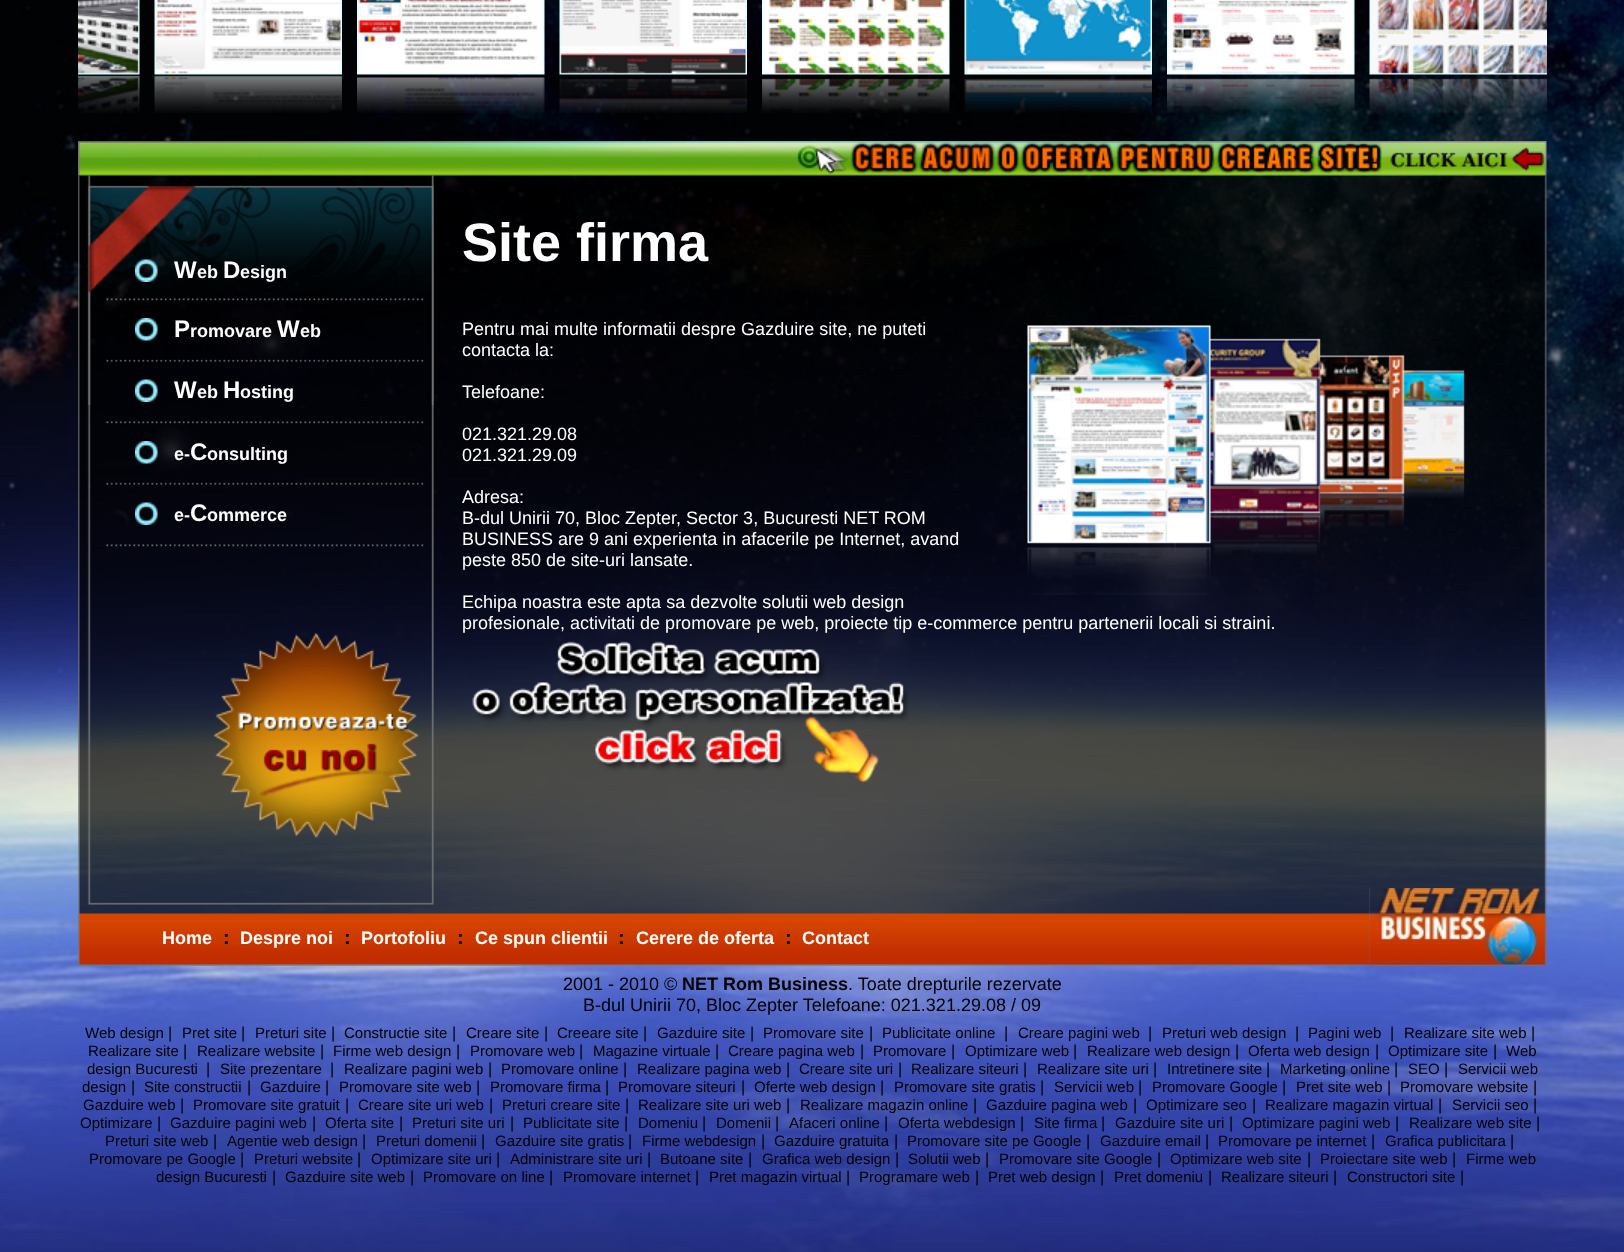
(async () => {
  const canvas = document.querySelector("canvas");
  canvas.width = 1624;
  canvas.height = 1252;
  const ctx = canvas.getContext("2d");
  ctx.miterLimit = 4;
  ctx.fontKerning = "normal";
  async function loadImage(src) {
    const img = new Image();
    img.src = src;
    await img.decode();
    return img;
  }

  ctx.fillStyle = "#ffffff";
  ctx.fillRect(0, 0, 1624, 1252);
  ctx.drawImage(await loadImage("img/1.png"), 0, 0, 1624, 1252);
  ctx.drawImage(await loadImage("img/2.png"), 78, 0, 62, 113);
  ctx.drawImage(await loadImage("img/3.png"), 154, 0, 188, 113);
  ctx.drawImage(await loadImage("img/4.png"), 357, 0, 188, 113);
  ctx.drawImage(await loadImage("img/5.png"), 559, 0, 188, 113);
  ctx.drawImage(await loadImage("img/6.png"), 762, 0, 188, 113);
  ctx.drawImage(await loadImage("img/7.png"), 964, 0, 188, 113);
  ctx.drawImage(await loadImage("img/8.png"), 1167, 0, 188, 113);
  ctx.drawImage(await loadImage("img/9.png"), 1369, 0, 178, 113);
  ctx.drawImage(await loadImage("img/11.png"), 78, 175, 1469, 713);
  ctx.drawImage(await loadImage("img/10.png"), 78, 141, 1469, 35);
  ctx.drawImage(await loadImage("img/12.png"), 87, 185, 347, 220);
  ctx.drawImage(await loadImage("img/13.png"), 135, 259, 23, 23);
  ctx.drawImage(await loadImage("img/14.png"), 106, 298, 318, 3);
  ctx.drawImage(await loadImage("img/15.png"), 135, 318, 23, 23);
  ctx.drawImage(await loadImage("img/16.png"), 106, 359, 318, 3);
  ctx.drawImage(await loadImage("img/17.png"), 135, 379, 23, 23);
  ctx.drawImage(await loadImage("img/18.png"), 106, 421, 318, 3);
  ctx.drawImage(await loadImage("img/19.png"), 135, 441, 23, 23);
  ctx.drawImage(await loadImage("img/20.png"), 106, 482, 318, 3);
  ctx.drawImage(await loadImage("img/21.png"), 135, 502, 23, 23);
  ctx.drawImage(await loadImage("img/22.png"), 106, 544, 318, 3);
  ctx.drawImage(await loadImage("img/23.png"), 213, 632, 206, 207);
  ctx.drawImage(await loadImage("img/24.png"), 1027, 325, 438, 270);
  ctx.drawImage(await loadImage("img/25.png"), 472, 641, 437, 141);
  ctx.drawImage(await loadImage("img/26.png"), 78, 888, 1292, 78);
  ctx.drawImage(await loadImage("img/27.png"), 1369, 888, 178, 78);
  ctx.font = "bold 24px Liberation Sans";
  ctx.fillText("W", 174, 278);
  ctx.font = "bold 18px Liberation Sans";
  ctx.fillText("eb", 197, 278);
  ctx.font = "bold 24px Liberation Sans";
  ctx.fillText("D", 223, 278);
  ctx.font = "bold 18px Liberation Sans";
  ctx.fillText("esign", 240, 278);
  ctx.font = "bold 24px Liberation Sans";
  ctx.fillText("P", 174, 337);
  ctx.font = "bold 18px Liberation Sans";
  ctx.fillText("romovare", 190, 337);
  ctx.font = "bold 24px Liberation Sans";
  ctx.fillText("W", 277, 337);
  ctx.font = "bold 18px Liberation Sans";
  ctx.fillText("eb", 300, 337);
  ctx.font = "bold 24px Liberation Sans";
  ctx.fillText("W", 174, 398);
  ctx.font = "bold 18px Liberation Sans";
  ctx.fillText("eb", 197, 398);
  ctx.font = "bold 24px Liberation Sans";
  ctx.fillText("H", 223, 398);
  ctx.font = "bold 18px Liberation Sans";
  ctx.fillText("osting", 240, 398);
  ctx.fillText("e-", 174, 460);
  ctx.font = "bold 24px Liberation Sans";
  ctx.fillText("C", 190, 460);
  ctx.font = "bold 18px Liberation Sans";
  ctx.fillText("onsulting", 207, 460);
  ctx.fillText("e-", 174, 521);
  ctx.font = "bold 24px Liberation Sans";
  ctx.fillText("C", 190, 521);
  ctx.font = "bold 18px Liberation Sans";
  ctx.fillText("ommerce", 207, 521);
  ctx.font = "bold 54px Liberation Sans";
  ctx.fillText("Site firma", 462, 261);
  ctx.font = "18px Liberation Sans";
  for (const [text, x, y] of [
    ["Pentru mai multe informatii despre Gazduire site, ne puteti", 462, 335],
    ["contacta la:", 462, 356],
    ["Telefoane:", 462, 398],
    ["021.321.29.08", 462, 440],
    ["021.321.29.09", 462, 461],
    ["Adresa:", 462, 503],
    ["B-dul Unirii 70, Bloc Zepter, Sector 3, Bucuresti NET ROM", 462, 524],
    ["BUSINESS are 9 ani experienta in afacerile pe Internet, avand", 462, 545],
    ["peste 850 de site-uri lansate.", 462, 566],
    ["Echipa noastra este apta sa dezvolte solutii web design", 462, 608],
    ["profesionale, activitati de promovare pe web, proiecte tip e-commerce pentru partenerii locali si straini.", 462, 629],
  ]) {
    ctx.fillText(text, x, y);
  }
  ctx.font = "bold 18px Liberation Sans";
  ctx.fillText("Home", 162, 944);
  ctx.font = "bold 20px Liberation Sans";
  ctx.fillStyle = "#000000";
  ctx.fillText(":", 223, 944);
  ctx.font = "bold 18px Liberation Sans";
  ctx.fillStyle = "#ffffff";
  ctx.fillText("Despre noi", 240, 944);
  ctx.font = "bold 20px Liberation Sans";
  ctx.fillStyle = "#000000";
  ctx.fillText(":", 344, 944);
  ctx.font = "bold 18px Liberation Sans";
  ctx.fillStyle = "#ffffff";
  ctx.fillText("Portofoliu", 361, 944);
  ctx.font = "bold 20px Liberation Sans";
  ctx.fillStyle = "#000000";
  ctx.fillText(":", 457, 944);
  ctx.font = "bold 18px Liberation Sans";
  ctx.fillStyle = "#ffffff";
  ctx.fillText("Ce spun clientii", 475, 944);
  ctx.font = "bold 20px Liberation Sans";
  ctx.fillStyle = "#000000";
  ctx.fillText(":", 618, 944);
  ctx.font = "bold 18px Liberation Sans";
  ctx.fillStyle = "#ffffff";
  ctx.fillText("Cerere de oferta", 636, 944);
  ctx.font = "bold 20px Liberation Sans";
  ctx.fillStyle = "#000000";
  ctx.fillText(":", 785, 944);
  ctx.font = "bold 18px Liberation Sans";
  ctx.fillStyle = "#ffffff";
  ctx.fillText("Contact", 802, 944);
  ctx.font = "18px Liberation Sans";
  ctx.fillStyle = "#000000";
  ctx.fillText("2001 - 2010 ©", 563, 990);
  ctx.font = "bold 18px Liberation Sans";
  ctx.fillText("NET Rom Business", 682, 990);
  ctx.font = "18px Liberation Sans";
  ctx.fillText(". Toate drepturile rezervate", 848, 990);
  ctx.fillText("B-dul Unirii 70, Bloc Zepter Telefoane: 021.321.29.08 / 09", 583, 1011);
  ctx.font = "15px Liberation Sans";
  ctx.fillText("Web design", 85, 1038);
  ctx.font = "16px Liberation Sans";
  ctx.fillText("|", 168, 1038);
  ctx.font = "15px Liberation Sans";
  ctx.fillText("Pret site", 182, 1038);
  ctx.font = "16px Liberation Sans";
  ctx.fillText("|", 241, 1038);
  ctx.font = "15px Liberation Sans";
  ctx.fillText("Preturi site", 255, 1038);
  ctx.font = "16px Liberation Sans";
  ctx.fillText("|", 331, 1038);
  ctx.font = "15px Liberation Sans";
  ctx.fillText("Constructie site", 344, 1038);
  ctx.font = "16px Liberation Sans";
  ctx.fillText("|", 452, 1038);
  ctx.font = "15px Liberation Sans";
  ctx.fillText("Creare site", 466, 1038);
  ctx.font = "16px Liberation Sans";
  ctx.fillText("|", 544, 1038);
  ctx.font = "15px Liberation Sans";
  ctx.fillText("Creeare site", 557, 1038);
  ctx.font = "16px Liberation Sans";
  ctx.fillText("|", 643, 1038);
  ctx.font = "15px Liberation Sans";
  ctx.fillText("Gazduire site", 657, 1038);
  ctx.font = "16px Liberation Sans";
  ctx.fillText("|", 750, 1038);
  ctx.font = "15px Liberation Sans";
  ctx.fillText("Promovare site", 763, 1038);
  ctx.font = "16px Liberation Sans";
  ctx.fillText("|", 869, 1038);
  ctx.font = "15px Liberation Sans";
  ctx.fillText("Publicitate online", 882, 1038);
  ctx.font = "16px Liberation Sans";
  ctx.fillText("|", 1004, 1038);
  ctx.font = "15px Liberation Sans";
  ctx.fillText("Creare pagini web", 1018, 1038);
  ctx.font = "16px Liberation Sans";
  ctx.fillText("|", 1148, 1038);
  ctx.font = "15px Liberation Sans";
  ctx.fillText("Preturi web design", 1162, 1038);
  ctx.font = "16px Liberation Sans";
  ctx.fillText("|", 1295, 1038);
  ctx.font = "15px Liberation Sans";
  ctx.fillText("Pagini web", 1308, 1038);
  ctx.font = "16px Liberation Sans";
  ctx.fillText("|", 1390, 1038);
  ctx.font = "15px Liberation Sans";
  ctx.fillText("Realizare site web", 1404, 1038);
  ctx.font = "16px Liberation Sans";
  ctx.fillText("|", 1531, 1038);
  ctx.font = "15px Liberation Sans";
  ctx.fillText("Realizare site", 88, 1056);
  ctx.font = "16px Liberation Sans";
  ctx.fillText("|", 183, 1056);
  ctx.font = "15px Liberation Sans";
  ctx.fillText("Realizare website", 197, 1056);
  ctx.font = "16px Liberation Sans";
  ctx.fillText("|", 320, 1056);
  ctx.font = "15px Liberation Sans";
  ctx.fillText("Firme web design", 333, 1056);
  ctx.font = "16px Liberation Sans";
  ctx.fillText("|", 456, 1056);
  ctx.font = "15px Liberation Sans";
  ctx.fillText("Promovare web", 470, 1056);
  ctx.font = "16px Liberation Sans";
  ctx.fillText("|", 579, 1056);
  ctx.font = "15px Liberation Sans";
  ctx.fillText("Magazine virtuale", 593, 1056);
  ctx.font = "16px Liberation Sans";
  ctx.fillText("|", 715, 1056);
  ctx.font = "15px Liberation Sans";
  ctx.fillText("Creare pagina web", 728, 1056);
  ctx.font = "16px Liberation Sans";
  ctx.fillText("|", 860, 1056);
  ctx.font = "15px Liberation Sans";
  ctx.fillText("Promovare", 873, 1056);
  ctx.font = "16px Liberation Sans";
  ctx.fillText("|", 951, 1056);
  ctx.font = "15px Liberation Sans";
  ctx.fillText("Optimizare web", 965, 1056);
  ctx.font = "16px Liberation Sans";
  ctx.fillText("|", 1073, 1056);
  ctx.font = "15px Liberation Sans";
  ctx.fillText("Realizare web design", 1087, 1056);
  ctx.font = "16px Liberation Sans";
  ctx.fillText("|", 1235, 1056);
  ctx.font = "15px Liberation Sans";
  ctx.fillText("Oferta web design", 1248, 1056);
  ctx.font = "16px Liberation Sans";
  ctx.fillText("|", 1375, 1056);
  ctx.font = "15px Liberation Sans";
  ctx.fillText("Optimizare site", 1388, 1056);
  ctx.font = "16px Liberation Sans";
  ctx.fillText("|", 1493, 1056);
  ctx.font = "15px Liberation Sans";
  ctx.fillText("Web", 1506, 1056);
  ctx.fillText("design Bucuresti", 87, 1074);
  ctx.font = "16px Liberation Sans";
  ctx.fillText("|", 206, 1074);
  ctx.font = "15px Liberation Sans";
  ctx.fillText("Site prezentare", 220, 1074);
  ctx.font = "16px Liberation Sans";
  ctx.fillText("|", 330, 1074);
  ctx.font = "15px Liberation Sans";
  ctx.fillText("Realizare pagini web", 344, 1074);
  ctx.font = "16px Liberation Sans";
  ctx.fillText("|", 488, 1074);
  ctx.font = "15px Liberation Sans";
  ctx.fillText("Promovare online", 501, 1074);
  ctx.font = "16px Liberation Sans";
  ctx.fillText("|", 623, 1074);
  ctx.font = "15px Liberation Sans";
  ctx.fillText("Realizare pagina web", 637, 1074);
  ctx.font = "16px Liberation Sans";
  ctx.fillText("|", 786, 1074);
  ctx.font = "15px Liberation Sans";
  ctx.fillText("Creare site uri", 799, 1074);
  ctx.font = "16px Liberation Sans";
  ctx.fillText("|", 898, 1074);
  ctx.font = "15px Liberation Sans";
  ctx.fillText("Realizare siteuri", 911, 1074);
  ctx.font = "16px Liberation Sans";
  ctx.fillText("|", 1023, 1074);
  ctx.font = "15px Liberation Sans";
  ctx.fillText("Realizare site uri", 1037, 1074);
  ctx.font = "16px Liberation Sans";
  ctx.fillText("|", 1153, 1074);
  ctx.font = "15px Liberation Sans";
  ctx.fillText("Intretinere site", 1167, 1074);
  ctx.font = "16px Liberation Sans";
  ctx.fillText("|", 1266, 1074);
  ctx.font = "15px Liberation Sans";
  ctx.fillText("Marketing online", 1280, 1074);
  ctx.font = "16px Liberation Sans";
  ctx.fillText("|", 1394, 1074);
  ctx.font = "15px Liberation Sans";
  ctx.fillText("SEO", 1408, 1074);
  ctx.font = "16px Liberation Sans";
  ctx.fillText("|", 1444, 1074);
  ctx.font = "15px Liberation Sans";
  ctx.fillText("Servicii web", 1458, 1074);
  ctx.fillText("design", 82, 1092);
  ctx.font = "16px Liberation Sans";
  ctx.fillText("|", 131, 1092);
  ctx.font = "15px Liberation Sans";
  ctx.fillText("Site constructii", 144, 1092);
  ctx.font = "16px Liberation Sans";
  ctx.fillText("|", 247, 1092);
  ctx.font = "15px Liberation Sans";
  ctx.fillText("Gazduire", 260, 1092);
  ctx.font = "16px Liberation Sans";
  ctx.fillText("|", 325, 1092);
  ctx.font = "15px Liberation Sans";
  ctx.fillText("Promovare site web", 339, 1092);
  ctx.font = "16px Liberation Sans";
  ctx.fillText("|", 476, 1092);
  ctx.font = "15px Liberation Sans";
  ctx.fillText("Promovare firma", 490, 1092);
  ctx.font = "16px Liberation Sans";
  ctx.fillText("|", 605, 1092);
  ctx.font = "15px Liberation Sans";
  ctx.fillText("Promovare siteuri", 618, 1092);
  ctx.font = "16px Liberation Sans";
  ctx.fillText("|", 741, 1092);
  ctx.font = "15px Liberation Sans";
  ctx.fillText("Oferte web design", 754, 1092);
  ctx.font = "16px Liberation Sans";
  ctx.fillText("|", 880, 1092);
  ctx.font = "15px Liberation Sans";
  ctx.fillText("Promovare site gratis", 894, 1092);
  ctx.font = "16px Liberation Sans";
  ctx.fillText("|", 1040, 1092);
  ctx.font = "15px Liberation Sans";
  ctx.fillText("Servicii web", 1054, 1092);
  ctx.font = "16px Liberation Sans";
  ctx.fillText("|", 1138, 1092);
  ctx.font = "15px Liberation Sans";
  ctx.fillText("Promovare Google", 1152, 1092);
  ctx.font = "16px Liberation Sans";
  ctx.fillText("|", 1282, 1092);
  ctx.font = "15px Liberation Sans";
  ctx.fillText("Pret site web", 1296, 1092);
  ctx.font = "16px Liberation Sans";
  ctx.fillText("|", 1387, 1092);
  ctx.font = "15px Liberation Sans";
  ctx.fillText("Promovare website", 1400, 1092);
  ctx.font = "16px Liberation Sans";
  ctx.fillText("|", 1533, 1092);
  ctx.font = "15px Liberation Sans";
  ctx.fillText("Gazduire web", 83, 1110);
  ctx.font = "16px Liberation Sans";
  ctx.fillText("|", 180, 1110);
  ctx.font = "15px Liberation Sans";
  ctx.fillText("Promovare site gratuit", 193, 1110);
  ctx.font = "16px Liberation Sans";
  ctx.fillText("|", 345, 1110);
  ctx.font = "15px Liberation Sans";
  ctx.fillText("Creare site uri web", 358, 1110);
  ctx.font = "16px Liberation Sans";
  ctx.fillText("|", 489, 1110);
  ctx.font = "15px Liberation Sans";
  ctx.fillText("Preturi creare site", 502, 1110);
  ctx.font = "16px Liberation Sans";
  ctx.fillText("|", 625, 1110);
  ctx.font = "15px Liberation Sans";
  ctx.fillText("Realizare site uri web", 638, 1110);
  ctx.font = "16px Liberation Sans";
  ctx.fillText("|", 786, 1110);
  ctx.font = "15px Liberation Sans";
  ctx.fillText("Realizare magazin online", 800, 1110);
  ctx.font = "16px Liberation Sans";
  ctx.fillText("|", 973, 1110);
  ctx.font = "15px Liberation Sans";
  ctx.fillText("Gazduire pagina web", 986, 1110);
  ctx.font = "16px Liberation Sans";
  ctx.fillText("|", 1133, 1110);
  ctx.font = "15px Liberation Sans";
  ctx.fillText("Optimizare seo", 1146, 1110);
  ctx.font = "16px Liberation Sans";
  ctx.fillText("|", 1252, 1110);
  ctx.font = "15px Liberation Sans";
  ctx.fillText("Realizare magazin virtual", 1265, 1110);
  ctx.font = "16px Liberation Sans";
  ctx.fillText("|", 1438, 1110);
  ctx.font = "15px Liberation Sans";
  ctx.fillText("Servicii seo", 1452, 1110);
  ctx.font = "16px Liberation Sans";
  ctx.fillText("|", 1533, 1110);
  ctx.font = "15px Liberation Sans";
  ctx.fillText("Optimizare", 80, 1128);
  ctx.font = "16px Liberation Sans";
  ctx.fillText("|", 157, 1128);
  ctx.font = "15px Liberation Sans";
  ctx.fillText("Gazduire pagini web", 170, 1128);
  ctx.font = "16px Liberation Sans";
  ctx.fillText("|", 312, 1128);
  ctx.font = "15px Liberation Sans";
  ctx.fillText("Oferta site", 325, 1128);
  ctx.font = "16px Liberation Sans";
  ctx.fillText("|", 399, 1128);
  ctx.font = "15px Liberation Sans";
  ctx.fillText("Preturi site uri", 412, 1128);
  ctx.font = "16px Liberation Sans";
  ctx.fillText("|", 510, 1128);
  ctx.font = "15px Liberation Sans";
  ctx.fillText("Publicitate site", 523, 1128);
  ctx.font = "16px Liberation Sans";
  ctx.fillText("|", 624, 1128);
  ctx.font = "15px Liberation Sans";
  ctx.fillText("Domeniu", 638, 1128);
  ctx.font = "16px Liberation Sans";
  ctx.fillText("|", 702, 1128);
  ctx.font = "15px Liberation Sans";
  ctx.fillText("Domenii", 716, 1128);
  ctx.font = "16px Liberation Sans";
  ctx.fillText("|", 775, 1128);
  ctx.font = "15px Liberation Sans";
  ctx.fillText("Afaceri online", 789, 1128);
  ctx.font = "16px Liberation Sans";
  ctx.fillText("|", 884, 1128);
  ctx.font = "15px Liberation Sans";
  ctx.fillText("Oferta webdesign", 898, 1128);
  ctx.font = "16px Liberation Sans";
  ctx.fillText("|", 1020, 1128);
  ctx.font = "15px Liberation Sans";
  ctx.fillText("Site firma", 1034, 1128);
  ctx.font = "16px Liberation Sans";
  ctx.fillText("|", 1101, 1128);
  ctx.font = "15px Liberation Sans";
  ctx.fillText("Gazduire site uri", 1115, 1128);
  ctx.font = "16px Liberation Sans";
  ctx.fillText("|", 1229, 1128);
  ctx.font = "15px Liberation Sans";
  ctx.fillText("Optimizare pagini web", 1242, 1128);
  ctx.font = "16px Liberation Sans";
  ctx.fillText("|", 1395, 1128);
  ctx.font = "15px Liberation Sans";
  ctx.fillText("Realizare web site", 1409, 1128);
  ctx.font = "16px Liberation Sans";
  ctx.fillText("|", 1536, 1128);
  ctx.font = "15px Liberation Sans";
  ctx.fillText("Preturi site web", 105, 1146);
  ctx.font = "16px Liberation Sans";
  ctx.fillText("|", 213, 1146);
  ctx.font = "15px Liberation Sans";
  ctx.fillText("Agentie web design", 227, 1146);
  ctx.font = "16px Liberation Sans";
  ctx.fillText("|", 362, 1146);
  ctx.font = "15px Liberation Sans";
  ctx.fillText("Preturi domenii", 376, 1146);
  ctx.font = "16px Liberation Sans";
  ctx.fillText("|", 481, 1146);
  ctx.font = "15px Liberation Sans";
  ctx.fillText("Gazduire site gratis", 495, 1146);
  ctx.font = "16px Liberation Sans";
  ctx.fillText("|", 628, 1146);
  ctx.font = "15px Liberation Sans";
  ctx.fillText("Firme webdesign", 642, 1146);
  ctx.font = "16px Liberation Sans";
  ctx.fillText("|", 761, 1146);
  ctx.font = "15px Liberation Sans";
  ctx.fillText("Gazduire gratuita", 774, 1146);
  ctx.font = "16px Liberation Sans";
  ctx.fillText("|", 894, 1146);
  ctx.font = "15px Liberation Sans";
  ctx.fillText("Promovare site pe Google", 907, 1146);
  ctx.font = "16px Liberation Sans";
  ctx.fillText("|", 1086, 1146);
  ctx.font = "15px Liberation Sans";
  ctx.fillText("Gazduire email", 1100, 1146);
  ctx.font = "16px Liberation Sans";
  ctx.fillText("|", 1205, 1146);
  ctx.font = "15px Liberation Sans";
  ctx.fillText("Promovare pe internet", 1218, 1146);
  ctx.font = "16px Liberation Sans";
  ctx.fillText("|", 1371, 1146);
  ctx.font = "15px Liberation Sans";
  ctx.fillText("Grafica publicitara", 1385, 1146);
  ctx.font = "16px Liberation Sans";
  ctx.fillText("|", 1510, 1146);
  ctx.font = "15px Liberation Sans";
  ctx.fillText("Promovare pe Google", 89, 1164);
  ctx.font = "16px Liberation Sans";
  ctx.fillText("|", 240, 1164);
  ctx.font = "15px Liberation Sans";
  ctx.fillText("Preturi website", 254, 1164);
  ctx.font = "16px Liberation Sans";
  ctx.fillText("|", 357, 1164);
  ctx.font = "15px Liberation Sans";
  ctx.fillText("Optimizare site uri", 371, 1164);
  ctx.font = "16px Liberation Sans";
  ctx.fillText("|", 496, 1164);
  ctx.font = "15px Liberation Sans";
  ctx.fillText("Administrare site uri", 510, 1164);
  ctx.font = "16px Liberation Sans";
  ctx.fillText("|", 647, 1164);
  ctx.font = "15px Liberation Sans";
  ctx.fillText("Butoane site", 660, 1164);
  ctx.font = "16px Liberation Sans";
  ctx.fillText("|", 748, 1164);
  ctx.font = "15px Liberation Sans";
  ctx.fillText("Grafica web design", 762, 1164);
  ctx.font = "16px Liberation Sans";
  ctx.fillText("|", 895, 1164);
  ctx.font = "15px Liberation Sans";
  ctx.fillText("Solutii web", 908, 1164);
  ctx.font = "16px Liberation Sans";
  ctx.fillText("|", 985, 1164);
  ctx.font = "15px Liberation Sans";
  ctx.fillText("Promovare site Google", 999, 1164);
  ctx.font = "16px Liberation Sans";
  ctx.fillText("|", 1157, 1164);
  ctx.font = "15px Liberation Sans";
  ctx.fillText("Optimizare web site", 1170, 1164);
  ctx.font = "16px Liberation Sans";
  ctx.fillText("|", 1307, 1164);
  ctx.font = "15px Liberation Sans";
  ctx.fillText("Proiectare site web", 1320, 1164);
  ctx.font = "16px Liberation Sans";
  ctx.fillText("|", 1452, 1164);
  ctx.font = "15px Liberation Sans";
  ctx.fillText("Firme web", 1466, 1164);
  ctx.fillText("design Bucuresti", 156, 1182);
  ctx.font = "16px Liberation Sans";
  ctx.fillText("|", 272, 1182);
  ctx.font = "15px Liberation Sans";
  ctx.fillText("Gazduire site web", 285, 1182);
  ctx.font = "16px Liberation Sans";
  ctx.fillText("|", 410, 1182);
  ctx.font = "15px Liberation Sans";
  ctx.fillText("Promovare on line", 423, 1182);
  ctx.font = "16px Liberation Sans";
  ctx.fillText("|", 549, 1182);
  ctx.font = "15px Liberation Sans";
  ctx.fillText("Promovare internet", 563, 1182);
  ctx.font = "16px Liberation Sans";
  ctx.fillText("|", 695, 1182);
  ctx.font = "15px Liberation Sans";
  ctx.fillText("Pret magazin virtual", 709, 1182);
  ctx.font = "16px Liberation Sans";
  ctx.fillText("|", 846, 1182);
  ctx.font = "15px Liberation Sans";
  ctx.fillText("Programare web", 859, 1182);
  ctx.font = "16px Liberation Sans";
  ctx.fillText("|", 975, 1182);
  ctx.font = "15px Liberation Sans";
  ctx.fillText("Pret web design", 988, 1182);
  ctx.font = "16px Liberation Sans";
  ctx.fillText("|", 1100, 1182);
  ctx.font = "15px Liberation Sans";
  ctx.fillText("Pret domeniu", 1114, 1182);
  ctx.font = "16px Liberation Sans";
  ctx.fillText("|", 1208, 1182);
  ctx.font = "15px Liberation Sans";
  ctx.fillText("Realizare siteuri", 1221, 1182);
  ctx.font = "16px Liberation Sans";
  ctx.fillText("|", 1333, 1182);
  ctx.font = "15px Liberation Sans";
  ctx.fillText("Constructori site", 1347, 1182);
  ctx.font = "16px Liberation Sans";
  ctx.fillText("|", 1460, 1182);
})();
